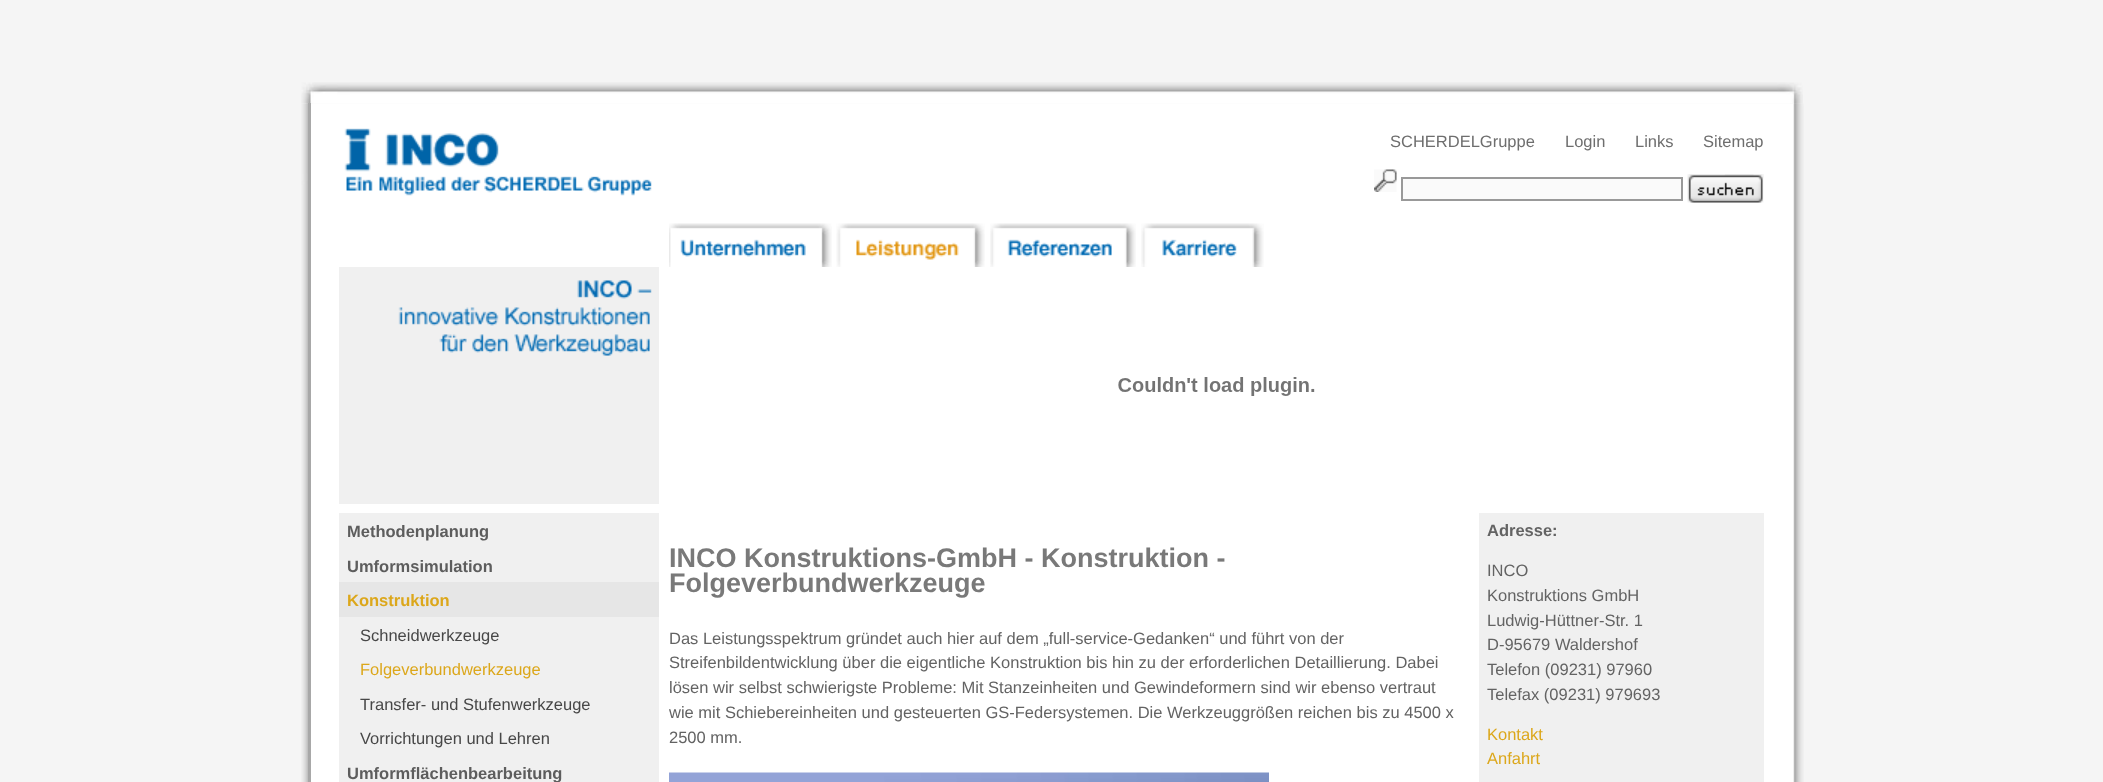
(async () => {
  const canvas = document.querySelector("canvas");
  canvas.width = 2103;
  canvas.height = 782;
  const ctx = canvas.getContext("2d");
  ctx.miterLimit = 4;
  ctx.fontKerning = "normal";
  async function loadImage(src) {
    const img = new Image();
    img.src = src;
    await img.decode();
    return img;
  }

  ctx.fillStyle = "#f5f5f5";
  ctx.fillRect(0, 0, 2103, 782);
  ctx.drawImage(await loadImage("img/1.png"), 301, 82, 1502, 22);
  ctx.drawImage(await loadImage("img/3.png"), 301, 103, 7, 679);
  ctx.drawImage(await loadImage("img/14.png"), 1793, 103, 10, 679);
  ctx.drawImage(await loadImage("img/2.png"), 306, 103, 1493, 1);
  ctx.fillStyle = "#a8a8a8";
  ctx.fillRect(308, 103, 3, 679);
  ctx.fillStyle = "#ffffff";
  ctx.fillRect(311, 104, 1482, 678);
  ctx.drawImage(await loadImage("img/4.png"), 344, 128, 308, 68);
  ctx.drawImage(await loadImage("img/5.png"), 1374, 169, 23, 23);
  ctx.fillStyle = "#fafafa";
  ctx.beginPath();
  ctx.rect(1402, 178, 280, 22);
  ctx.fill();
  ctx.strokeStyle = "#999999";
  ctx.lineWidth = 2;
  ctx.stroke();
  ctx.drawImage(await loadImage("img/6.png"), 1687, 174, 77, 29);
  ctx.drawImage(await loadImage("img/7.png"), 669, 223, 163, 44);
  ctx.drawImage(await loadImage("img/8.png"), 836, 223, 149, 44);
  ctx.drawImage(await loadImage("img/9.png"), 990, 223, 146, 44);
  ctx.drawImage(await loadImage("img/10.png"), 1141, 223, 123, 44);
  ctx.fillStyle = "#f0f0f0";
  ctx.fillRect(339, 267, 320, 515);
  ctx.fillStyle = "#ffffff";
  ctx.fillRect(339, 504, 320, 9);
  ctx.drawImage(await loadImage("img/11.png"), 398, 280, 254, 76);
  ctx.fillStyle = "#e6e6e6";
  ctx.fillRect(339, 582, 320, 35);
  ctx.drawImage(await loadImage("img/12.png"), 1118, 377, 197, 19);
  ctx.drawImage(await loadImage("img/13.png"), 669, 772, 600, 10);
  ctx.fillStyle = "#f0f0f0";
  ctx.fillRect(1479, 513, 285, 269);
  ctx.drawImage(await loadImage("img/15.png"), 1794, 103, 10, 679);
  ctx.font = "16.5px Liberation Sans";
  ctx.fillStyle = "#6e6e6e";
  for (const [text, x, y] of [
    ["SCHERDELGruppe", 1390, 147],
    ["Login", 1565, 147],
    ["Links", 1635, 147],
    ["Sitemap", 1703, 147],
  ]) {
    ctx.fillText(text, x, y);
  }
  ctx.font = "bold 16.5px Liberation Sans";
  ctx.fillStyle = "#5d5d5d";
  ctx.fillText("Methodenplanung", 347, 537);
  ctx.fillText("Umformsimulation", 347, 572);
  ctx.fillStyle = "#dca71b";
  ctx.fillText("Konstruktion", 347, 606);
  ctx.font = "16.5px Liberation Sans";
  ctx.fillStyle = "#474747";
  ctx.fillText("Schneidwerkzeuge", 360, 641);
  ctx.fillStyle = "#dca71b";
  ctx.fillText("Folgeverbundwerkzeuge", 360, 675);
  ctx.fillStyle = "#474747";
  ctx.fillText("Transfer- und Stufenwerkzeuge", 360, 710);
  ctx.fillText("Vorrichtungen und Lehren", 360, 744);
  ctx.font = "bold 16.5px Liberation Sans";
  ctx.fillStyle = "#5d5d5d";
  ctx.fillText("Umformflächenbearbeitung", 347, 779);
  ctx.font = "bold 27px Liberation Sans";
  ctx.fillStyle = "#797979";
  ctx.fillText("INCO Konstruktions-GmbH - Konstruktion -", 669, 567);
  ctx.fillText("Folgeverbundwerkzeuge", 669, 592);
  ctx.font = "16.5px Liberation Sans";
  ctx.fillStyle = "#636363";
  for (const [text, x, y] of [
    ["Das Leistungsspektrum gründet auch hier auf dem „full-service-Gedanken“ und führt von der", 669, 644],
    ["Streifenbildentwicklung über die eigentliche Konstruktion bis hin zu der erforderlichen Detaillierung. Dabei", 669, 668],
    ["lösen wir selbst schwierigste Probleme: Mit Stanzeinheiten und Gewindeformern sind wir ebenso vertraut", 669, 693],
    ["wie mit Schiebereinheiten und gesteuerten GS-Federsystemen. Die Werkzeuggrößen reichen bis zu 4500 x", 669, 718],
    ["2500 mm.", 669, 743],
  ]) {
    ctx.fillText(text, x, y);
  }
  ctx.font = "bold 16.5px Liberation Sans";
  ctx.fillText("Adresse:", 1487, 536);
  ctx.font = "16.5px Liberation Sans";
  for (const [text, x, y] of [
    ["INCO", 1487, 576],
    ["Konstruktions GmbH", 1487, 601],
    ["Ludwig-Hüttner-Str. 1", 1487, 626],
    ["D-95679 Waldershof", 1487, 650],
    ["Telefon (09231) 97960", 1487, 675],
    ["Telefax (09231) 979693", 1487, 700],
  ]) {
    ctx.fillText(text, x, y);
  }
  ctx.fillStyle = "#dca71b";
  ctx.fillText("Kontakt", 1487, 740);
  ctx.fillText("Anfahrt", 1487, 764);
})();
